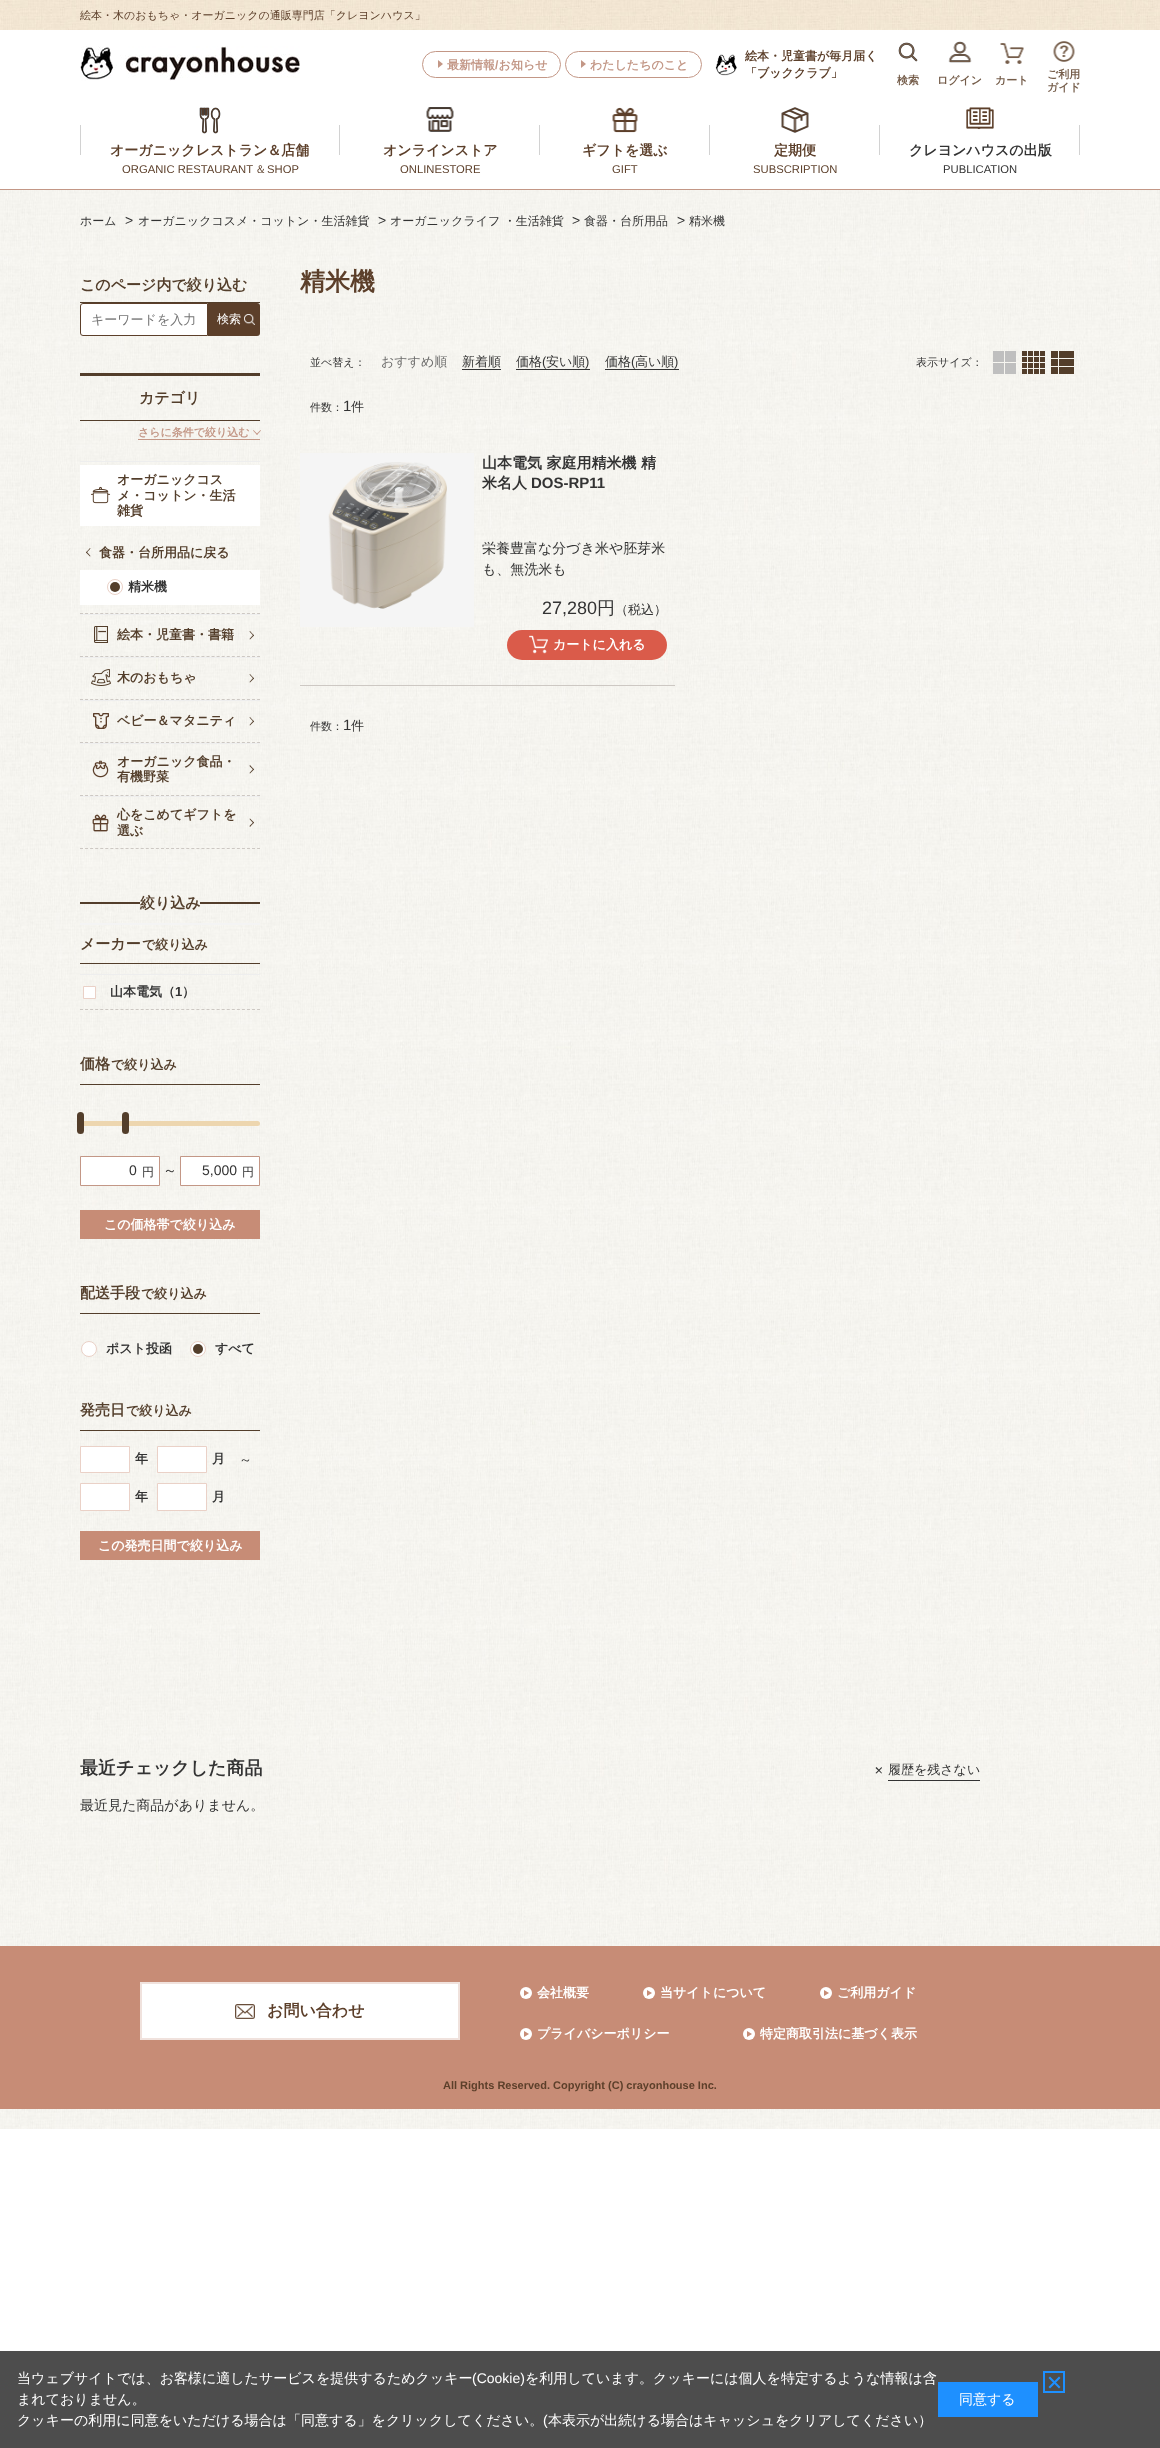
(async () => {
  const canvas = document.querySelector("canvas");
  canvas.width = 1160;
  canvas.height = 2448;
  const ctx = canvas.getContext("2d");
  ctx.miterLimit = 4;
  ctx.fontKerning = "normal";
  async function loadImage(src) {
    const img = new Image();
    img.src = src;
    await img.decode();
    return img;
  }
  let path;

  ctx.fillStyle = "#ffffff";
  ctx.fillRect(0, 0, 1160, 2448);
  ctx.drawImage(await loadImage("img/1.png"), 0, 190, 1160, 1939);
  ctx.fillStyle = "#c39786";
  ctx.fillRect(0, 189, 1160, 1);
  ctx.drawImage(await loadImage("img/2.png"), 0, 0, 1160, 30);
  ctx.drawImage(await loadImage("img/3.png"), 80, 46, 220, 35);
  ctx.beginPath();
  ctx.roundRect(422.5, 51.5, 138, 26, 13);
  ctx.strokeStyle = "#c39786";
  ctx.stroke();
  path = new Path2D("M438 68V60L443 64Z");
  ctx.fill(path);
  ctx.beginPath();
  ctx.roundRect(565.5, 51.5, 136, 26, 13);
  ctx.stroke();
  path = new Path2D("M581 68V60L586 64Z");
  ctx.fill(path);
  ctx.drawImage(await loadImage("img/4.png"), 715, 54, 22, 22);
  ctx.drawImage(await loadImage("img/5.png"), 898, 42, 20, 20);
  ctx.drawImage(await loadImage("img/6.png"), 948, 41, 24, 22);
  ctx.drawImage(await loadImage("img/7.png"), 1000, 43, 24, 21);
  ctx.drawImage(await loadImage("img/8.png"), 1053, 41, 22, 21);
  ctx.drawImage(await loadImage("img/9.png"), 199, 107, 22, 27);
  ctx.fillStyle = "#d2d2d2";
  ctx.fillRect(80, 125, 1, 30);
  ctx.fillRect(339, 125, 1, 30);
  ctx.drawImage(await loadImage("img/10.png"), 426, 107, 28, 25);
  ctx.fillRect(539, 125, 1, 30);
  ctx.drawImage(await loadImage("img/11.png"), 612, 107, 26, 26);
  ctx.fillRect(709, 125, 1, 30);
  ctx.drawImage(await loadImage("img/12.png"), 781, 107, 28, 26);
  ctx.fillRect(879, 125, 1, 30);
  ctx.drawImage(await loadImage("img/13.png"), 966, 107, 28, 23);
  ctx.fillRect(1079, 125, 1, 30);
  ctx.fillStyle = "#533e2b";
  ctx.fillRect(80, 302, 180, 1);
  ctx.fillStyle = "#ffffff";
  ctx.beginPath();
  ctx.roundRect(80.5, 303.5, 127, 32, [2.5, 0, 0, 2.5]);
  ctx.fill();
  ctx.strokeStyle = "#5c3f2a";
  ctx.stroke();
  ctx.fillStyle = "#5c3f2a";
  ctx.beginPath();
  ctx.roundRect(208, 303, 52, 33, [0, 3, 3, 0]);
  ctx.fill();
  ctx.drawImage(await loadImage("img/14.png"), 244, 314, 11, 11);
  for (const [x, y, w, h, color] of [
    [80, 373, 180, 3, "#533e2b"],
    [80, 420, 180, 1, "#533e2b"],
    [138, 439, 122, 1, "#c39786"],
  ]) {
    ctx.fillStyle = color;
    ctx.fillRect(x, y, w, h);
  }
  path = new Path2D("M260.5 430L261 430.5L257 435L256.5 434Z");
  ctx.fill(path);
  path = new Path2D("M253.5 430L257.5 434L257 435L253 430.5Z");
  ctx.fill(path);
  ctx.fillStyle = "#eeeeee";
  ctx.fillRect(80, 461, 180, 1);
  path = new Path2D("M80 613.5H260");
  ctx.strokeStyle = "#cdc8c3";
  ctx.setLineDash([3, 2.06]);
  ctx.stroke(path);
  ctx.fillStyle = "#ffffff";
  ctx.fillRect(80, 465, 180, 61);
  ctx.drawImage(await loadImage("img/15.png"), 90, 486, 21, 18);
  ctx.fillStyle = "#533e2b";
  path = new Path2D("M86 552.5L90 548L90.5 548.5L86.5 553Z");
  ctx.fill(path);
  path = new Path2D("M86 552.5L86.5 551.5L90.5 556L90 556.5Z");
  ctx.fill(path);
  ctx.fillStyle = "#ffffff";
  ctx.fillRect(80, 570, 180, 35);
  ctx.beginPath();
  ctx.arc(115, 587, 7.5, 0, Math.PI * 2);
  ctx.strokeStyle = "#ead1c7";
  ctx.setLineDash([]);
  ctx.stroke();
  ctx.fillStyle = "#533e2b";
  ctx.beginPath();
  ctx.arc(115, 587, 5, 0, Math.PI * 2);
  ctx.fill();
  ctx.fillStyle = "#eeeeee";
  ctx.fillRect(80, 614, 180, 1);
  path = new Path2D("M80 656.5H260");
  ctx.strokeStyle = "#cdc8c3";
  ctx.setLineDash([3, 2.06]);
  ctx.stroke(path);
  ctx.drawImage(await loadImage("img/16.png"), 94, 626, 14, 17);
  ctx.fillStyle = "#533e2b";
  path = new Path2D("M250 631L254 635.5L253.5 636L249.5 631.5Z");
  ctx.fill(path);
  path = new Path2D("M253.5 634.5L254 635.5L250 639.5L249.5 639Z");
  ctx.fill(path);
  ctx.fillStyle = "#eeeeee";
  ctx.fillRect(80, 657, 180, 1);
  path = new Path2D("M80 699.5H260");
  ctx.stroke(path);
  ctx.drawImage(await loadImage("img/17.png"), 91, 669, 20, 17);
  ctx.fillStyle = "#533e2b";
  path = new Path2D("M250 674L254 678.5L253.5 679L249.5 674.5Z");
  ctx.fill(path);
  path = new Path2D("M253.5 677.5L254 678.5L250 682.5L249.5 682Z");
  ctx.fill(path);
  ctx.fillStyle = "#eeeeee";
  ctx.fillRect(80, 700, 180, 1);
  path = new Path2D("M80 742.5H260");
  ctx.stroke(path);
  ctx.drawImage(await loadImage("img/18.png"), 93, 713, 16, 16);
  ctx.fillStyle = "#533e2b";
  path = new Path2D("M250 717L254 721.5L253.5 722L249.5 717.5Z");
  ctx.fill(path);
  path = new Path2D("M253.5 720.5L254 721.5L250 725.5L249.5 725Z");
  ctx.fill(path);
  ctx.fillStyle = "#eeeeee";
  ctx.fillRect(80, 743, 180, 1);
  path = new Path2D("M80 795.5H260");
  ctx.stroke(path);
  ctx.drawImage(await loadImage("img/19.png"), 92, 760, 17, 18);
  ctx.fillStyle = "#533e2b";
  path = new Path2D("M250 765L254 769.5L253.5 770L249.5 766Z");
  ctx.fill(path);
  path = new Path2D("M253.5 768.5L254 769.5L250 773.5L249.5 773Z");
  ctx.fill(path);
  ctx.fillStyle = "#eeeeee";
  ctx.fillRect(80, 796, 180, 1);
  path = new Path2D("M80 848.5H260");
  ctx.stroke(path);
  ctx.drawImage(await loadImage("img/20.png"), 92, 814, 17, 18);
  ctx.fillStyle = "#533e2b";
  path = new Path2D("M250 818.5L254 822.5L253.5 823.5L249.5 819Z");
  ctx.fill(path);
  path = new Path2D("M253.5 822L254 822.5L250 827L249.5 826Z");
  ctx.fill(path);
  for (const [x, y, w, h, color] of [
    [80, 923, 180, 2, "#f4f4f4"],
    [80, 902, 60, 2, "#533e2b"],
    [200, 902, 60, 2, "#533e2b"],
    [80, 963, 180, 1, "#533e2b"],
    [80, 974, 180, 1, "#eeeeee"],
  ]) {
    ctx.fillStyle = color;
    ctx.fillRect(x, y, w, h);
  }
  path = new Path2D("M80 1009.5H260");
  ctx.stroke(path);
  ctx.fillStyle = "#ffffff";
  ctx.beginPath();
  ctx.rect(83.5, 986.5, 12, 12);
  ctx.fill();
  ctx.strokeStyle = "#ead1c7";
  ctx.setLineDash([]);
  ctx.stroke();
  ctx.fillStyle = "#533e2b";
  ctx.fillRect(80, 1084, 180, 1);
  ctx.fillStyle = "#edd6af";
  ctx.beginPath();
  ctx.roundRect(80, 1121, 180, 5, 2.5);
  ctx.fill();
  ctx.fillStyle = "#533e2b";
  ctx.beginPath();
  ctx.roundRect(77, 1112, 7, 22, 3.5);
  ctx.fill();
  ctx.beginPath();
  ctx.roundRect(122, 1112, 7, 22, 3.5);
  ctx.fill();
  ctx.fillStyle = "#ffffff";
  ctx.beginPath();
  ctx.rect(80.5, 1156.5, 79, 29);
  ctx.fill();
  ctx.strokeStyle = "#c39786";
  ctx.stroke();
  ctx.beginPath();
  ctx.rect(180.5, 1156.5, 79, 29);
  ctx.fill();
  ctx.stroke();
  ctx.fillStyle = "#c78c76";
  ctx.fillRect(80, 1210, 180, 29);
  ctx.fillStyle = "#533e2b";
  ctx.fillRect(80, 1313, 180, 1);
  ctx.fillStyle = "#ffffff";
  ctx.beginPath();
  ctx.arc(89, 1349, 7.5, 0, Math.PI * 2);
  ctx.fill();
  ctx.strokeStyle = "#ead1c7";
  ctx.stroke();
  ctx.beginPath();
  ctx.arc(198, 1349, 7.5, 0, Math.PI * 2);
  ctx.fill();
  ctx.stroke();
  ctx.fillStyle = "#533e2b";
  ctx.beginPath();
  ctx.arc(198, 1349, 5, 0, Math.PI * 2);
  ctx.fill();
  ctx.fillRect(80, 1430, 180, 1);
  ctx.fillStyle = "#ffffff";
  ctx.beginPath();
  ctx.rect(80.5, 1446.5, 49, 26);
  ctx.fill();
  ctx.stroke();
  ctx.beginPath();
  ctx.rect(157.5, 1446.5, 49, 26);
  ctx.fill();
  ctx.stroke();
  ctx.beginPath();
  ctx.rect(80.5, 1483.5, 49, 27);
  ctx.fill();
  ctx.stroke();
  ctx.beginPath();
  ctx.rect(157.5, 1483.5, 49, 27);
  ctx.fill();
  ctx.stroke();
  for (const [x, y, w, h, color] of [
    [80, 1531, 180, 29, "#c78c76"],
    [462, 369, 39, 1, "#333333"],
    [516, 369, 74, 1, "#333333"],
    [605, 369, 74, 1, "#333333"],
  ]) {
    ctx.fillStyle = color;
    ctx.fillRect(x, y, w, h);
  }
  ctx.drawImage(await loadImage("img/21.png"), 993, 351, 23, 23);
  ctx.drawImage(await loadImage("img/22.png"), 1022, 351, 23, 23);
  ctx.drawImage(await loadImage("img/23.png"), 1051, 351, 23, 23);
  ctx.fillStyle = "#cdc8c3";
  ctx.fillRect(300, 685, 375, 1);
  ctx.fillStyle = "#f5f5f5";
  ctx.fillRect(300, 453, 174, 174);
  ctx.drawImage(await loadImage("img/24.png"), 328, 462, 119, 147);
  ctx.fillStyle = "#da5b4a";
  ctx.beginPath();
  ctx.roundRect(507, 630, 160, 30, 15);
  ctx.fill();
  ctx.drawImage(await loadImage("img/25.png"), 529, 635, 19, 19);
  ctx.fillStyle = "#333333";
  ctx.fillRect(888, 1780, 92, 1);
  path = new Path2D("M876.5 1767L882 1773L881.5 1773.5L875.5 1768Z");
  ctx.fill(path);
  path = new Path2D("M875.5 1773L881.5 1767L882 1768L876.5 1773.5Z");
  ctx.fill(path);
  ctx.fillStyle = "#c78c76";
  ctx.fillRect(0, 1946, 1160, 163);
  ctx.fillStyle = "#ffffff";
  ctx.beginPath();
  ctx.rect(141, 1983, 318, 56);
  ctx.fill();
  ctx.strokeStyle = "#f0e2dd";
  ctx.lineWidth = 2;
  ctx.stroke();
  ctx.drawImage(await loadImage("img/26.png"), 235, 2004, 20, 15);
  ctx.beginPath();
  ctx.arc(526, 1993, 6, 0, Math.PI * 2);
  ctx.fill();
  ctx.fillStyle = "#c78c76";
  path = new Path2D("M524 1996V1990L529 1993Z");
  ctx.fill(path);
  ctx.fillStyle = "#ffffff";
  ctx.beginPath();
  ctx.arc(649, 1993, 6, 0, Math.PI * 2);
  ctx.fill();
  ctx.fillStyle = "#c78c76";
  path = new Path2D("M647 1996V1990L652 1993Z");
  ctx.fill(path);
  ctx.fillStyle = "#ffffff";
  ctx.beginPath();
  ctx.arc(826, 1993, 6, 0, Math.PI * 2);
  ctx.fill();
  ctx.fillStyle = "#c78c76";
  path = new Path2D("M824 1996V1990L829 1993Z");
  ctx.fill(path);
  ctx.fillStyle = "#ffffff";
  ctx.beginPath();
  ctx.arc(526, 2034, 6, 0, Math.PI * 2);
  ctx.fill();
  ctx.fillStyle = "#c78c76";
  path = new Path2D("M524 2037V2031L529 2034Z");
  ctx.fill(path);
  ctx.fillStyle = "#ffffff";
  ctx.beginPath();
  ctx.arc(749, 2034, 6, 0, Math.PI * 2);
  ctx.fill();
  ctx.fillStyle = "#c78c76";
  path = new Path2D("M747 2037V2031L752 2034Z");
  ctx.fill(path);
  ctx.fillStyle = "#4d4d4d";
  ctx.fillRect(0, 2351, 1160, 97);
  ctx.strokeStyle = "#1e90ff";
  ctx.strokeRect(1044, 2372, 20, 20);
  ctx.fillStyle = "#1e90ff";
  path = new Path2D("M1048.5 2387L1059 2376.5L1060.5 2378L1050 2388.5Z");
  ctx.fill(path);
  path = new Path2D("M1050 2376.5L1060.5 2387L1059 2388.5L1048.5 2378Z");
  ctx.fill(path);
  ctx.fillRect(938, 2382, 100, 35);
  ctx.font = "500 11px WenQuanYi Zen Hei";
  ctx.fillStyle = "#5c3f2a";
  ctx.fillText("絵本・木のおもちゃ・オーガニックの通販専門店「クレヨンハウス」", 80, 19);
  ctx.font = "bold 12px WenQuanYi Zen Hei";
  ctx.fillStyle = "#c39786";
  ctx.fillText("最新情報 お知らせ", 447, 69);
  ctx.font = "bold 12px Liberation Sans";
  ctx.fillText("/", 495, 69);
  ctx.font = "bold 12px WenQuanYi Zen Hei";
  ctx.fillText("わたしたちのこと", 590, 69);
  ctx.fillStyle = "#5c3f2a";
  ctx.fillText("絵本・児童書が毎月届く", 745, 60);
  ctx.fillText("「ブッククラブ」", 745, 77);
  ctx.font = "bold 11px WenQuanYi Zen Hei";
  ctx.fillStyle = "#755d4a";
  for (const [text, x, y] of [
    ["検索", 897, 84],
    ["ログイン", 937, 84],
    ["カート", 995, 84],
    ["ご利用", 1047, 78],
    ["ガイド", 1047, 91],
  ]) {
    ctx.fillText(text, x, y);
  }
  ctx.font = "bold 14px WenQuanYi Zen Hei";
  ctx.fillStyle = "#5c3f2a";
  ctx.fillText("オーガニックレストラン＆店舗", 110, 155);
  ctx.font = "11.25px Liberation Sans";
  ctx.fillText("ORGANIC RESTAURANT", 122, 173);
  ctx.font = "500 11.25px WenQuanYi Zen Hei";
  ctx.fillText("＆", 255, 173);
  ctx.font = "11.25px Liberation Sans";
  ctx.fillText("SHOP", 267, 173);
  ctx.font = "bold 14px WenQuanYi Zen Hei";
  ctx.fillText("オンラインストア", 383, 155);
  ctx.font = "11.25px Liberation Sans";
  ctx.fillText("ONLINESTORE", 400, 173);
  ctx.font = "bold 14px WenQuanYi Zen Hei";
  ctx.fillText("ギフトを選ぶ", 582, 155);
  ctx.font = "11.25px Liberation Sans";
  ctx.fillText("GIFT", 612, 173);
  ctx.font = "bold 14px WenQuanYi Zen Hei";
  ctx.fillText("定期便", 774, 155);
  ctx.font = "11.25px Liberation Sans";
  ctx.fillText("SUBSCRIPTION", 753, 173);
  ctx.font = "bold 14px WenQuanYi Zen Hei";
  ctx.fillStyle = "#333333";
  ctx.fillText("クレヨンハウスの出版", 909, 155);
  ctx.font = "11.25px Liberation Sans";
  ctx.fillText("PUBLICATION", 943, 173);
  ctx.font = "500 12px WenQuanYi Zen Hei";
  ctx.fillText("ホーム", 80, 225);
  ctx.font = "14px Liberation Sans";
  ctx.fillText(">", 125, 225);
  ctx.font = "500 12px WenQuanYi Zen Hei";
  ctx.fillText("オーガニックコスメ・コットン・生活雑貨", 138, 225);
  ctx.font = "14px Liberation Sans";
  ctx.fillText(">", 378, 225);
  ctx.font = "500 12px WenQuanYi Zen Hei";
  ctx.fillText("オーガニックライフ ・生活雑貨", 390, 225);
  ctx.font = "14px Liberation Sans";
  ctx.fillText(">", 572, 225);
  ctx.font = "500 12px WenQuanYi Zen Hei";
  ctx.fillText("食器・台所用品", 584, 225);
  ctx.font = "14px Liberation Sans";
  ctx.fillText(">", 677, 225);
  ctx.font = "500 12px WenQuanYi Zen Hei";
  ctx.fillText("精米機", 689, 225);
  ctx.font = "bold 15px WenQuanYi Zen Hei";
  ctx.fillStyle = "#533e2b";
  ctx.fillText("このページ内で絞り込む", 80, 290);
  ctx.font = "500 13px WenQuanYi Zen Hei";
  ctx.fillStyle = "#757575";
  ctx.fillText("キーワードを入力", 91, 324);
  ctx.font = "500 12px WenQuanYi Zen Hei";
  ctx.fillStyle = "#ffffff";
  ctx.fillText("検索", 217, 323);
  ctx.font = "bold 15px WenQuanYi Zen Hei";
  ctx.fillStyle = "#533e2b";
  ctx.fillText("カテゴリ", 139, 403);
  ctx.font = "bold 11px WenQuanYi Zen Hei";
  ctx.fillStyle = "#c39786";
  ctx.fillText("さらに条件で絞り込む", 138, 436);
  ctx.font = "bold 13px WenQuanYi Zen Hei";
  ctx.fillStyle = "#533e2b";
  for (const [text, x, y] of [
    ["オーガニックコス", 117, 484],
    ["メ・コットン・生活", 117, 500],
    ["雑貨", 117, 515],
    ["食器・台所用品に戻る", 99, 557],
  ]) {
    ctx.fillText(text, x, y);
  }
  ctx.fillStyle = "#333333";
  ctx.fillText("精米機", 128, 591);
  ctx.fillStyle = "#533e2b";
  for (const [text, x, y] of [
    ["絵本・児童書・書籍", 117, 639],
    ["木のおもちゃ", 117, 682],
    ["ベビー＆マタニティ", 117, 725],
    ["オーガニック食品・", 117, 766],
    ["有機野菜", 117, 781],
    ["心をこめてギフトを", 117, 819],
    ["選ぶ", 117, 835],
  ]) {
    ctx.fillText(text, x, y);
  }
  ctx.font = "bold 15px WenQuanYi Zen Hei";
  ctx.fillText("絞り込み", 140, 908);
  ctx.fillText("メーカー", 80, 949);
  ctx.font = "bold 13px WenQuanYi Zen Hei";
  ctx.fillText("で絞り込み", 142, 949);
  ctx.fillStyle = "#333333";
  ctx.fillText("山本電気（", 110, 996);
  ctx.font = "bold 13px Liberation Sans";
  ctx.fillText("1", 175, 996);
  ctx.font = "bold 13px WenQuanYi Zen Hei";
  ctx.fillText("）", 182, 996);
  ctx.font = "bold 15px WenQuanYi Zen Hei";
  ctx.fillStyle = "#533e2b";
  ctx.fillText("価格", 80, 1069);
  ctx.font = "bold 13px WenQuanYi Zen Hei";
  ctx.fillText("で絞り込み", 111, 1069);
  ctx.font = "14px Liberation Sans";
  ctx.fillStyle = "#333333";
  ctx.fillText("0", 129, 1175);
  ctx.font = "500 12px WenQuanYi Zen Hei";
  ctx.fillText("円", 142, 1176);
  ctx.font = "500 14px WenQuanYi Zen Hei";
  ctx.fillText("～", 163, 1175);
  ctx.font = "14px Liberation Sans";
  ctx.fillText("5,000", 202, 1175);
  ctx.font = "500 12px WenQuanYi Zen Hei";
  ctx.fillText("円", 242, 1176);
  ctx.font = "bold 13px WenQuanYi Zen Hei";
  ctx.fillStyle = "#ffffff";
  ctx.fillText("この価格帯で絞り込み", 104, 1229);
  ctx.font = "bold 15px WenQuanYi Zen Hei";
  ctx.fillStyle = "#533e2b";
  ctx.fillText("配送手段", 80, 1298);
  ctx.font = "bold 13px WenQuanYi Zen Hei";
  ctx.fillText("で絞り込み", 141, 1298);
  ctx.fillStyle = "#333333";
  ctx.fillText("ポスト投函", 106, 1353);
  ctx.fillText("すべて", 215, 1353);
  ctx.font = "bold 15px WenQuanYi Zen Hei";
  ctx.fillStyle = "#533e2b";
  ctx.fillText("発売日", 80, 1415);
  ctx.font = "bold 13px WenQuanYi Zen Hei";
  ctx.fillText("で絞り込み", 126, 1415);
  ctx.fillStyle = "#333333";
  ctx.fillText("年", 135, 1463);
  ctx.fillText("月", 212, 1463);
  ctx.font = "500 13px WenQuanYi Zen Hei";
  ctx.fillText("～", 239, 1464);
  ctx.font = "bold 13px WenQuanYi Zen Hei";
  ctx.fillText("年", 135, 1501);
  ctx.fillText("月", 212, 1501);
  ctx.fillStyle = "#ffffff";
  ctx.fillText("この発売日間で絞り込み", 98, 1550);
  ctx.font = "bold 25px WenQuanYi Zen Hei";
  ctx.fillStyle = "#5c3f2a";
  ctx.fillText("精米機", 300, 290);
  ctx.font = "500 11px WenQuanYi Zen Hei";
  ctx.fillStyle = "#333333";
  ctx.fillText("並べ替え：", 310, 366);
  ctx.font = "500 13px WenQuanYi Zen Hei";
  ctx.fillStyle = "#6d6d6c";
  ctx.fillText("おすすめ順", 381, 366);
  ctx.fillStyle = "#333333";
  ctx.fillText("新着順", 462, 366);
  ctx.fillText("価格", 516, 366);
  ctx.font = "13px Liberation Sans";
  ctx.fillText("(", 542, 366);
  ctx.font = "500 13px WenQuanYi Zen Hei";
  ctx.fillText("安い順", 546, 366);
  ctx.font = "13px Liberation Sans";
  ctx.fillText(")", 585, 366);
  ctx.font = "500 13px WenQuanYi Zen Hei";
  ctx.fillText("価格", 605, 366);
  ctx.font = "13px Liberation Sans";
  ctx.fillText("(", 631, 366);
  ctx.font = "500 13px WenQuanYi Zen Hei";
  ctx.fillText("高い順", 635, 366);
  ctx.font = "13px Liberation Sans";
  ctx.fillText(")", 674, 366);
  ctx.font = "500 11px WenQuanYi Zen Hei";
  ctx.fillText("表示サイズ：", 916, 366);
  ctx.fillText("件数：", 310, 411);
  ctx.font = "15px Liberation Sans";
  ctx.fillText("1", 343, 411);
  ctx.font = "500 13px WenQuanYi Zen Hei";
  ctx.fillText("件", 351, 411);
  ctx.font = "bold 15px WenQuanYi Zen Hei";
  ctx.fillText("山本電気 家庭用精米機 精", 482, 468);
  ctx.fillText("米名人", 482, 488);
  ctx.font = "bold 15px Liberation Sans";
  ctx.fillText("DOS-RP11", 531, 488);
  ctx.font = "500 14px WenQuanYi Zen Hei";
  ctx.fillText("栄養豊富な分づき米や胚芽米", 482, 553);
  ctx.fillText("も、無洗米も", 482, 574);
  ctx.font = "18px Liberation Sans";
  ctx.fillText("27,280", 542, 614);
  ctx.font = "500 18px WenQuanYi Zen Hei";
  ctx.fillText("円", 597, 614);
  ctx.font = "500 13px WenQuanYi Zen Hei";
  ctx.fillText("（税込）", 615, 614);
  ctx.font = "bold 13px WenQuanYi Zen Hei";
  ctx.fillStyle = "#ffffff";
  ctx.fillText("カートに入れる", 553, 649);
  ctx.font = "500 11px WenQuanYi Zen Hei";
  ctx.fillStyle = "#333333";
  ctx.fillText("件数：", 310, 730);
  ctx.font = "15px Liberation Sans";
  ctx.fillText("1", 343, 730);
  ctx.font = "500 13px WenQuanYi Zen Hei";
  ctx.fillText("件", 351, 730);
  ctx.font = "bold 18px WenQuanYi Zen Hei";
  ctx.fillText("最近チェックした商品", 80, 1774);
  ctx.font = "500 13px WenQuanYi Zen Hei";
  ctx.fillText("履歴を残さない", 888, 1774);
  ctx.font = "500 14px WenQuanYi Zen Hei";
  ctx.fillText("最近見た商品がありません。", 80, 1810);
  ctx.font = "bold 16px WenQuanYi Zen Hei";
  ctx.fillStyle = "#5c3f2a";
  ctx.fillText("お問い合わせ", 267, 2016);
  ctx.font = "bold 13px WenQuanYi Zen Hei";
  ctx.fillStyle = "#ffffff";
  for (const [text, x, y] of [
    ["会社概要", 537, 1997],
    ["当サイトについて", 660, 1997],
    ["ご利用ガイド", 837, 1997],
    ["プライバシーポリシー", 537, 2038],
    ["特定商取引法に基づく表示", 760, 2038],
  ]) {
    ctx.fillText(text, x, y);
  }
  ctx.font = "bold 11px Liberation Sans";
  ctx.fillStyle = "#5c3f2a";
  ctx.fillText("All Rights Reserved. Copyright (C) crayonhouse Inc.", 443, 2089);
  ctx.font = "500 14px WenQuanYi Zen Hei";
  ctx.fillStyle = "#ffffff";
  ctx.fillText("当ウェブサイトでは、お客様に適したサービスを提供するためクッキー", 17, 2383);
  ctx.font = "14px Liberation Sans";
  ctx.fillText("(Cookie)", 472, 2383);
  ctx.font = "500 14px WenQuanYi Zen Hei";
  for (const [text, x, y] of [
    ["を利用しています。クッキーには個人を特定するような情報は含", 525, 2383],
    ["まれておりません。", 17, 2404],
    ["クッキーの利用に同意をいただける場合は「同意する」をクリックしてください。", 17, 2425],
  ]) {
    ctx.fillText(text, x, y);
  }
  ctx.font = "14px Liberation Sans";
  ctx.fillText("(", 543, 2425);
  ctx.font = "500 14px WenQuanYi Zen Hei";
  ctx.fillText("本表示が出続ける場合はキャッシュをクリアしてください）", 548, 2425);
  ctx.fillText("同意する", 959, 2404);
})();
